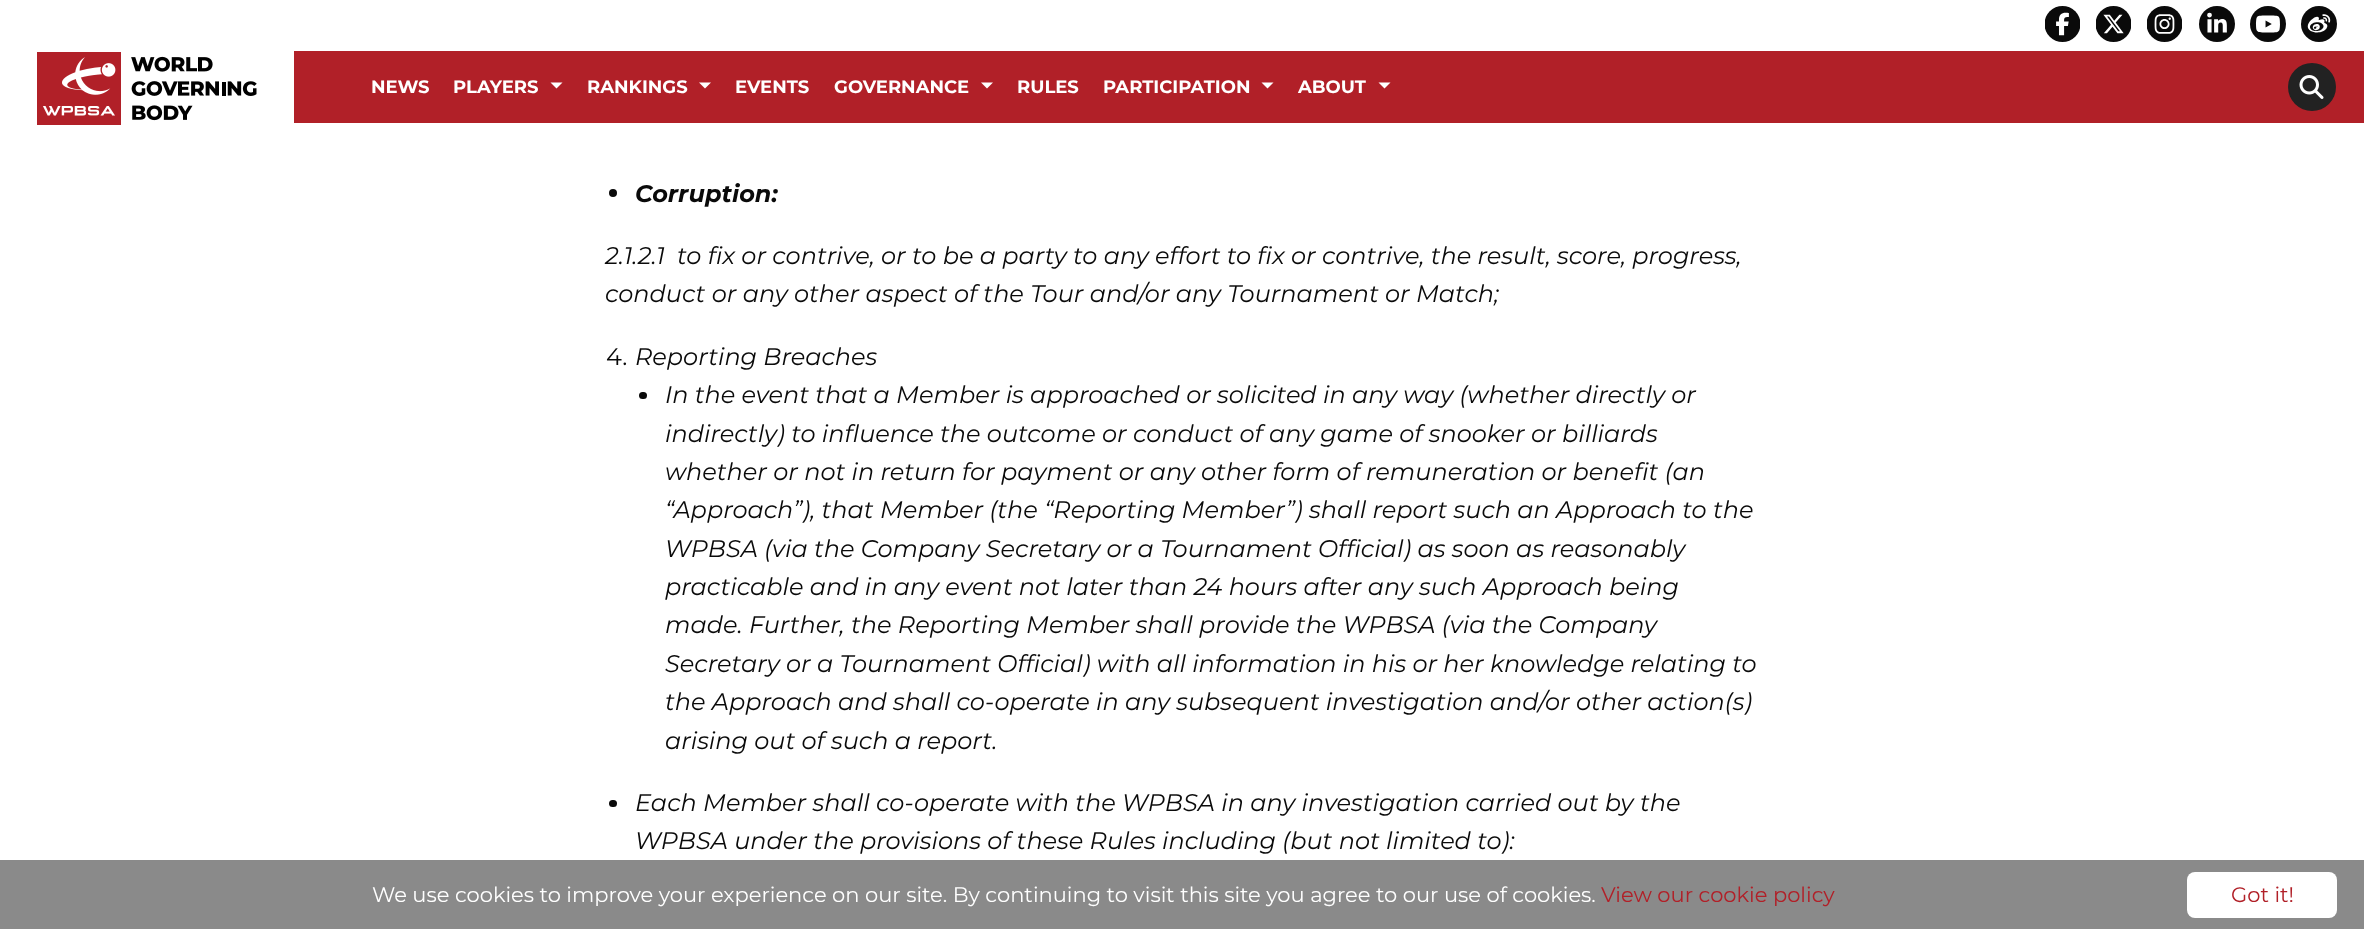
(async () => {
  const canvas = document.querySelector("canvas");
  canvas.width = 2364;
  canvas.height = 929;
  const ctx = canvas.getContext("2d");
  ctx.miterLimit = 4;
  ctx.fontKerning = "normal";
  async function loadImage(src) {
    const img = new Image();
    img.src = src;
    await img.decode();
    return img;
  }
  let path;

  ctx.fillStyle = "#ffffff";
  ctx.fillRect(0, 0, 2364, 929);
  ctx.drawImage(await loadImage("img/1.png"), 2045, 6, 35, 36);
  ctx.drawImage(await loadImage("img/2.png"), 2096, 6, 35, 36);
  ctx.drawImage(await loadImage("img/3.png"), 2147, 6, 35, 36);
  ctx.drawImage(await loadImage("img/4.png"), 2199, 6, 36, 36);
  ctx.drawImage(await loadImage("img/5.png"), 2250, 6, 36, 36);
  ctx.drawImage(await loadImage("img/6.png"), 2301, 6, 36, 36);
  ctx.drawImage(await loadImage("img/7.png"), 37, 52, 220, 73);
  ctx.fillStyle = "#b12028";
  ctx.fillRect(294, 51, 2070, 72);
  ctx.fillStyle = "#ffffff";
  path = new Path2D("M550.5 82.5H562.5L556.5 88.5Z");
  ctx.fill(path);
  path = new Path2D("M699 82.5H711L705 88.5Z");
  ctx.fill(path);
  path = new Path2D("M981 82.5H993L987 88.5Z");
  ctx.fill(path);
  path = new Path2D("M1261.5 82.5H1273.5L1267.5 88.5Z");
  ctx.fill(path);
  path = new Path2D("M1378.5 82.5H1390.5L1384.5 88.5Z");
  ctx.fill(path);
  ctx.fillStyle = "#222222";
  ctx.beginPath();
  ctx.arc(2312, 87, 24, 0, Math.PI * 2);
  ctx.fill();
  ctx.drawImage(await loadImage("img/8.png"), 2299, 75, 25, 24);
  ctx.fillStyle = "#0a0a0a";
  ctx.beginPath();
  ctx.arc(613, 193, 4, 0, Math.PI * 2);
  ctx.fill();
  ctx.beginPath();
  ctx.roundRect(639, 392, 8, 7, 3.5);
  ctx.fill();
  ctx.beginPath();
  ctx.roundRect(609, 800, 8, 7, 3.5);
  ctx.fill();
  ctx.fillStyle = "#8a8a8a";
  ctx.fillRect(0, 860, 2364, 69);
  ctx.fillStyle = "#ffffff";
  ctx.beginPath();
  ctx.roundRect(2187, 872, 150, 46, 8);
  ctx.fill();
  ctx.font = "100 18px 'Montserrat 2'";
  for (const [text, x, y] of [
    ["NEWS", 371, 93],
    ["PLAYERS", 453, 93],
    ["RANKINGS", 587, 93],
    ["EVENTS", 735, 93],
    ["GOVERNANCE", 834, 93],
    ["RULES", 1017, 93],
    ["PARTICIPATION", 1103, 93],
    ["ABOUT", 1298, 93],
  ]) {
    ctx.fillText(text, x, y);
  }
  ctx.font = "italic 100 24px Montserrat";
  ctx.fillStyle = "#0a0a0a";
  ctx.fillText("Corruption:", 635, 202);
  ctx.font = "italic 100 24px 'Montserrat 2'";
  for (const [text, x, y] of [
    ["2.1.2.1", 605, 264],
    ["to fix or contrive, or to be a party to any effort to fix or contrive, the result, score, progress,", 677, 264],
    ["conduct or any other aspect of the Tour and/or any Tournament or Match;", 605, 302],
  ]) {
    ctx.fillText(text, x, y);
  }
  ctx.font = "100 24px Montserrat";
  ctx.fillText("4.", 606, 365);
  ctx.font = "italic 100 24px 'Montserrat 2'";
  for (const [text, x, y] of [
    ["Reporting Breaches", 635, 365],
    ["In the event that a Member is approached or solicited in any way (whether directly or", 665, 403],
    ["indirectly) to influence the outcome or conduct of any game of snooker or billiards", 665, 442],
    ["whether or not in return for payment or any other form of remuneration or benefit (an", 665, 480],
    ["“Approach”), that Member (the “Reporting Member”) shall report such an Approach to the", 665, 518],
    ["WPBSA (via the Company Secretary or a Tournament Official) as soon as reasonably", 665, 557],
    ["practicable and in any event not later than 24 hours after any such Approach being", 665, 595],
    ["made. Further, the Reporting Member shall provide the WPBSA (via the Company", 665, 633],
    ["Secretary or a Tournament Official) with all information in his or her knowledge relating to", 665, 672],
    ["the Approach and shall co-operate in any subsequent investigation and/or other action(s)", 665, 710],
    ["arising out of such a report.", 665, 749],
    ["Each Member shall co-operate with the WPBSA in any investigation carried out by the", 635, 811],
    ["WPBSA under the provisions of these Rules including (but not limited to):", 635, 849],
  ]) {
    ctx.fillText(text, x, y);
  }
  ctx.font = "100 21px Montserrat";
  ctx.fillStyle = "#ffffff";
  ctx.fillText("We use cookies to improve your experience on our site. By continuing to visit this site you agree to our use of cookies.", 372, 902);
  ctx.fillStyle = "#b12028";
  ctx.fillText("View our cookie policy", 1601, 902);
  ctx.fillText("Got it!", 2231, 902);
})();
